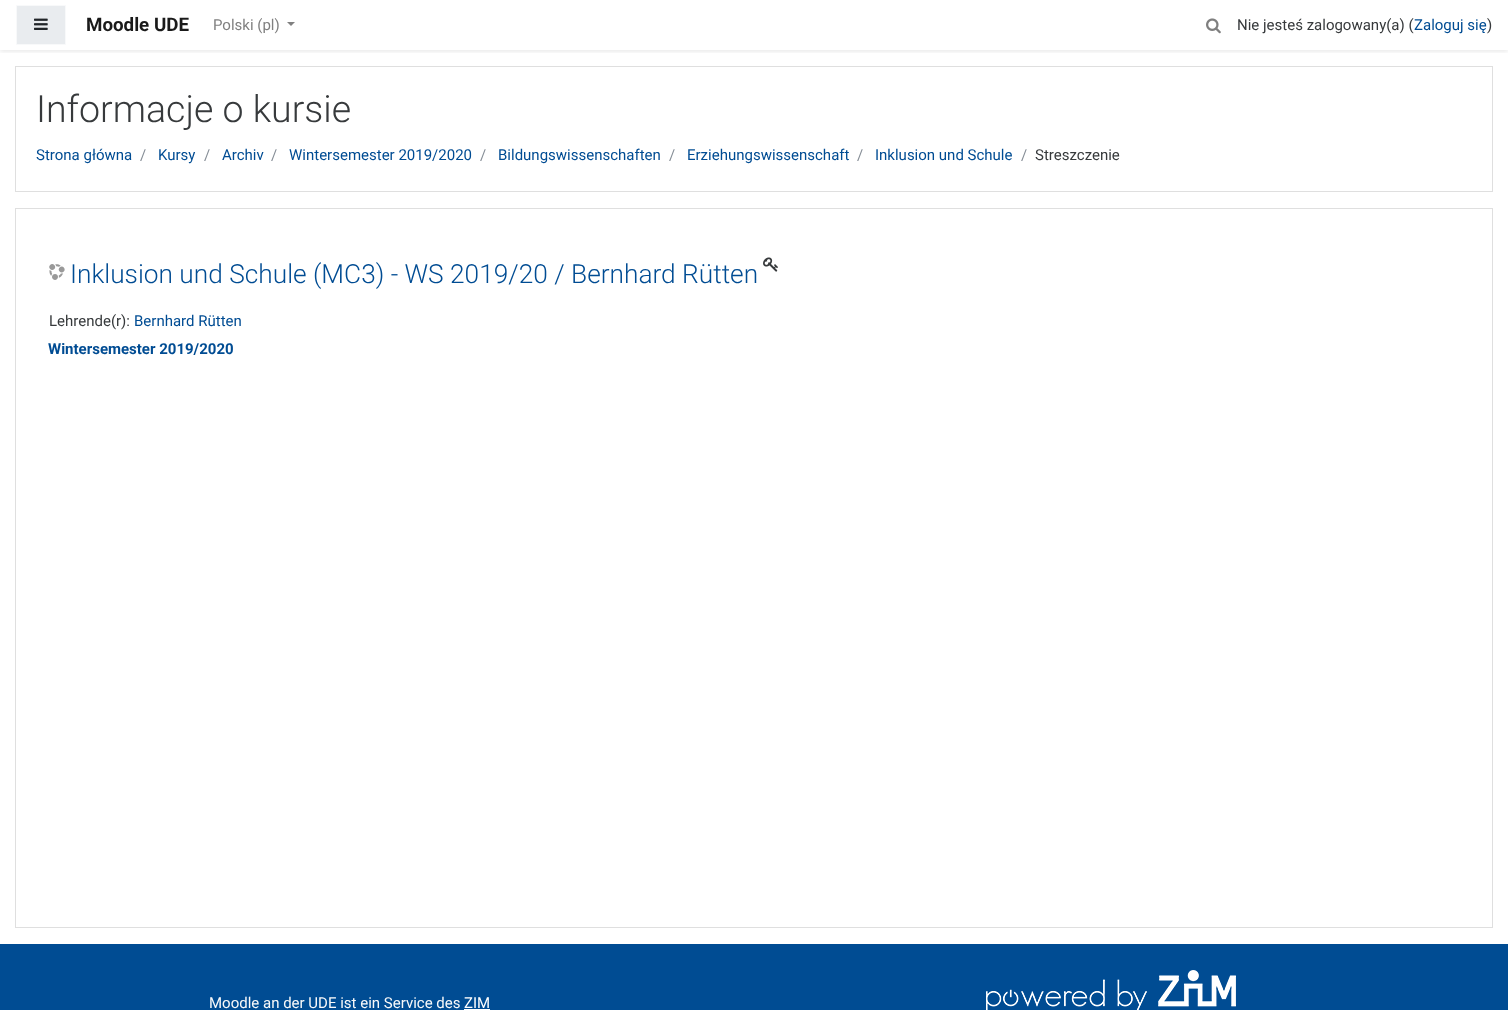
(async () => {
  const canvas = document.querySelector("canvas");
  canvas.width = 1508;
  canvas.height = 1010;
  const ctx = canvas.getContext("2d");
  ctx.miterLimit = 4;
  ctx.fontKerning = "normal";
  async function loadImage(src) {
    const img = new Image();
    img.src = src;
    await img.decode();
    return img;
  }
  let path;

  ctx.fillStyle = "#ffffff";
  ctx.fillRect(0, 0, 1508, 1010);
  ctx.save();
  ctx.beginPath();
  ctx.rect(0, 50, 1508, 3);
  ctx.clip();
  ctx.fillStyle = "rgba(0, 0, 0, 0.08)";
  ctx.filter = "blur(2px)";
  ctx.beginPath();
  ctx.rect(0, 2, 1508, 50);
  ctx.fill();
  ctx.filter = "none";
  ctx.restore();
  ctx.fillStyle = "#e9ecef";
  ctx.beginPath();
  ctx.rect(16.5, 5.5, 49, 39);
  ctx.fill();
  ctx.strokeStyle = "#f8f9fa";
  ctx.stroke();
  ctx.drawImage(await loadImage("img/1.png"), 34, 18, 14, 12);
  ctx.fillStyle = "#808080";
  path = new Path2D("M287 22H295L291 26Z");
  ctx.fill(path);
  ctx.drawImage(await loadImage("img/2.png"), 1206, 18, 15, 16);
  ctx.strokeStyle = "#dfdfdf";
  ctx.strokeRect(15.5, 66.5, 1477, 125);
  ctx.strokeRect(15.5, 208.5, 1477, 719);
  ctx.drawImage(await loadImage("img/3.png"), 49, 264, 16, 16);
  ctx.drawImage(await loadImage("img/4.png"), 763, 257, 15, 15);
  ctx.fillStyle = "#004c93";
  ctx.fillRect(0, 944, 1508, 66);
  ctx.fillStyle = "#ffffff";
  ctx.fillRect(464, 1009, 26, 1);
  ctx.drawImage(await loadImage("img/5.png"), 986, 970, 250, 40);
  ctx.font = "bold 18.75px Roboto";
  ctx.fillStyle = "#1a1a1a";
  ctx.fillText("Moodle UDE", 86, 31);
  ctx.font = "15px Roboto";
  ctx.fillStyle = "#808080";
  ctx.fillText("Polski (pl)", 213, 30);
  ctx.fillStyle = "#373a3c";
  ctx.fillText("Nie jesteś zalogowany(a) (", 1237, 30);
  ctx.fillStyle = "#004c93";
  ctx.fillText("Zaloguj się", 1414, 30);
  ctx.fillStyle = "#373a3c";
  ctx.fillText(")", 1487, 30);
  ctx.font = "300 37.5px Roboto";
  ctx.fillText("Informacje o kursie", 36, 122);
  ctx.font = "15px Roboto";
  ctx.fillStyle = "#004c93";
  ctx.fillText("Strona główna", 36, 160);
  ctx.fillStyle = "#868e96";
  ctx.fillText("/", 140, 160);
  ctx.fillStyle = "#004c93";
  ctx.fillText("Kursy", 158, 160);
  ctx.fillStyle = "#868e96";
  ctx.fillText("/", 204, 160);
  ctx.fillStyle = "#004c93";
  ctx.fillText("Archiv", 222, 160);
  ctx.fillStyle = "#868e96";
  ctx.fillText("/", 271, 160);
  ctx.fillStyle = "#004c93";
  ctx.fillText("Wintersemester 2019/2020", 289, 160);
  ctx.fillStyle = "#868e96";
  ctx.fillText("/", 480, 160);
  ctx.fillStyle = "#004c93";
  ctx.fillText("Bildungswissenschaften", 498, 160);
  ctx.fillStyle = "#868e96";
  ctx.fillText("/", 669, 160);
  ctx.fillStyle = "#004c93";
  ctx.fillText("Erziehungswissenschaft", 687, 160);
  ctx.fillStyle = "#868e96";
  ctx.fillText("/", 857, 160);
  ctx.fillStyle = "#004c93";
  ctx.fillText("Inklusion und Schule", 875, 160);
  ctx.fillStyle = "#868e96";
  ctx.fillText("/", 1021, 160);
  ctx.fillStyle = "#373a3c";
  ctx.fillText("Streszczenie", 1035, 160);
  ctx.font = "300 26.25px Roboto";
  ctx.fillStyle = "#004c93";
  ctx.fillText("Inklusion und Schule (MC3) - WS 2019/20 / Bernhard Rütten", 70, 283);
  ctx.font = "15px Roboto";
  ctx.fillStyle = "#373a3c";
  ctx.fillText("Lehrende(r):", 49, 326);
  ctx.fillStyle = "#004c93";
  ctx.fillText("Bernhard Rütten", 134, 326);
  ctx.font = "bold 15px Roboto";
  ctx.fillText("Wintersemester 2019/2020", 48, 354);
  ctx.font = "15px Roboto";
  ctx.fillStyle = "#f8f9fa";
  ctx.fillText("Moodle an der UDE ist ein Service des", 209, 1008);
  ctx.fillStyle = "#ffffff";
  ctx.fillText("ZIM", 464, 1008);
})();
